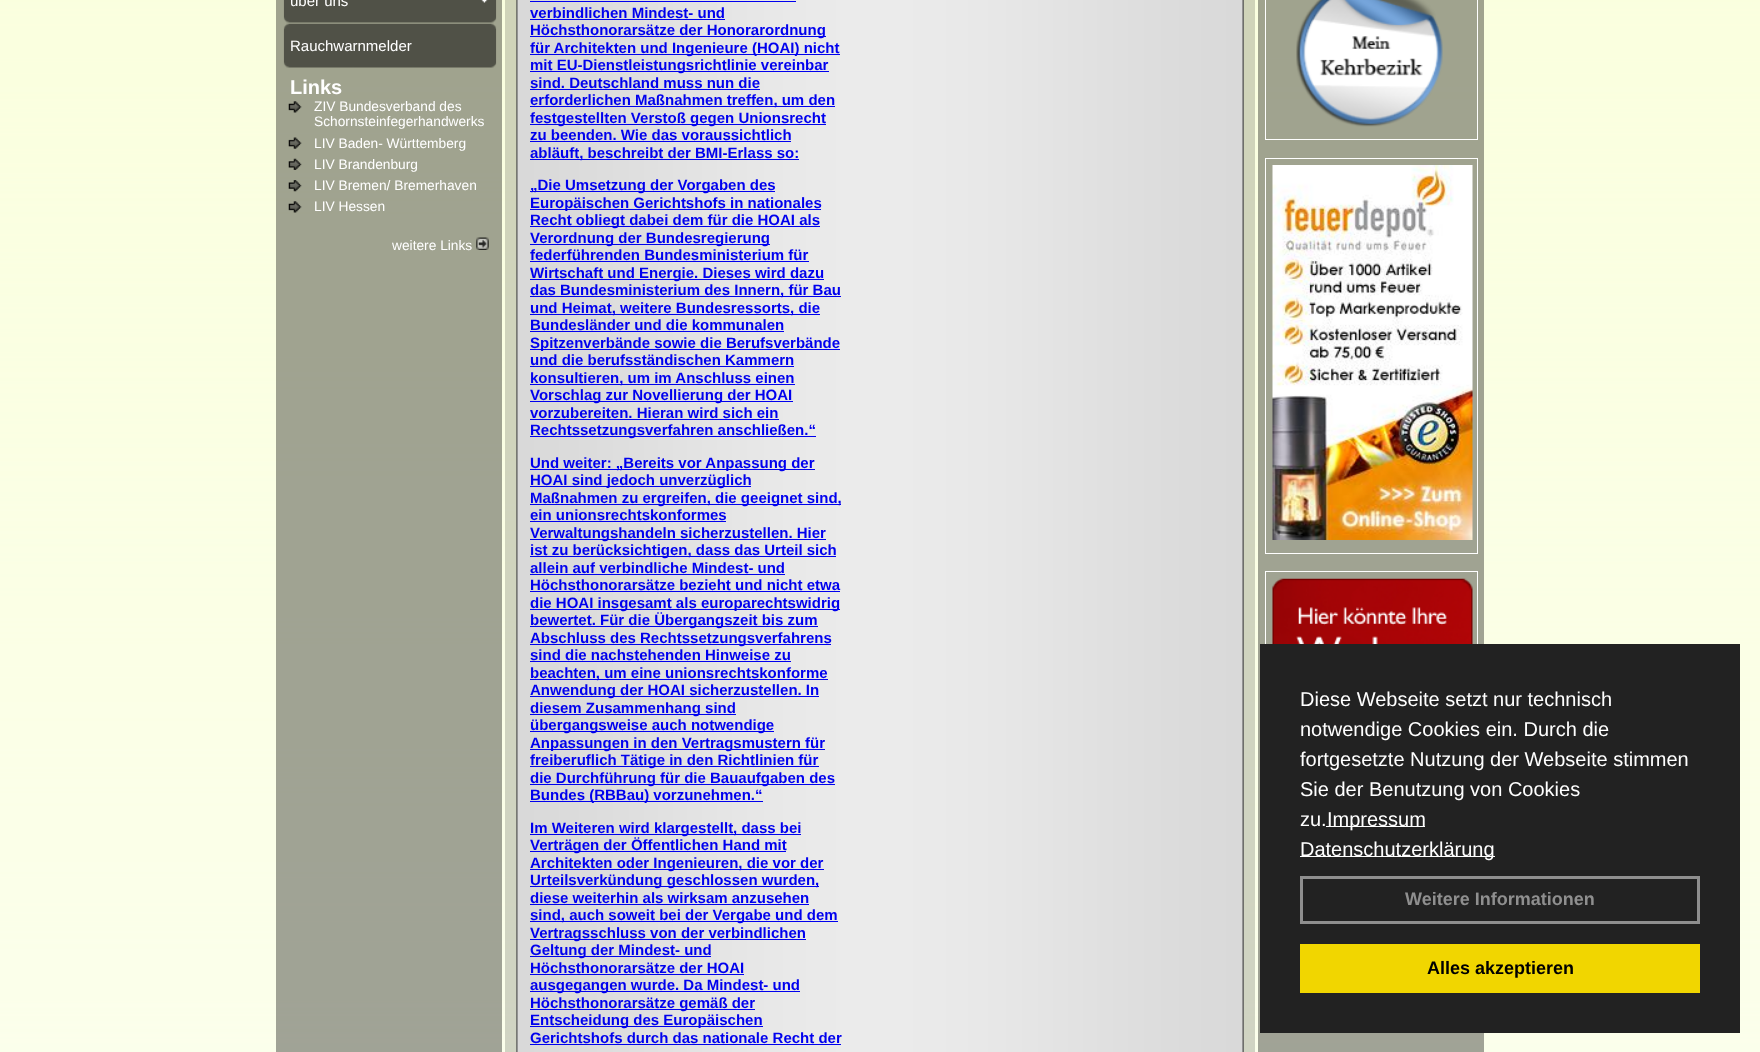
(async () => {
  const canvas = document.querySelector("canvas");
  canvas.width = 1760;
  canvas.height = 1052;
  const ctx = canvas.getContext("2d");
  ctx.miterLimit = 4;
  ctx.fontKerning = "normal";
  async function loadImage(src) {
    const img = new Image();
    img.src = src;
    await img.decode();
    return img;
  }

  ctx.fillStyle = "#ffffff";
  ctx.fillRect(0, 0, 1760, 1052);
  ctx.drawImage(await loadImage("img/1.png"), 0, 0, 1760, 1052);
  ctx.fillStyle = "rgba(0, 0, 0, 0.36)";
  ctx.fillRect(276, 0, 226, 1052);
  ctx.drawImage(await loadImage("img/2.png"), 283, 0, 214, 23);
  ctx.drawImage(await loadImage("img/3.png"), 481, 0, 7, 3);
  ctx.drawImage(await loadImage("img/4.png"), 283, 23, 214, 45);
  ctx.drawImage(await loadImage("img/5.png"), 288, 101, 14, 12);
  ctx.drawImage(await loadImage("img/6.png"), 288, 137, 14, 12);
  ctx.drawImage(await loadImage("img/7.png"), 288, 158, 14, 12);
  ctx.drawImage(await loadImage("img/8.png"), 288, 180, 14, 12);
  ctx.drawImage(await loadImage("img/9.png"), 288, 201, 14, 12);
  ctx.drawImage(await loadImage("img/10.png"), 476, 237, 13, 13);
  ctx.drawImage(await loadImage("img/11.png"), 505, 0, 750, 1052);
  for (const [x, y, w, h, color] of [
    [530, 1, 266, 1, "#0000ee"],
    [530, 19, 195, 1, "#0000ee"],
    [530, 36, 296, 1, "#0000ee"],
    [530, 54, 310, 1, "#0000ee"],
    [530, 71, 299, 1, "#0000ee"],
    [530, 89, 230, 1, "#0000ee"],
    [530, 106, 305, 1, "#0000ee"],
    [530, 124, 296, 1, "#0000ee"],
    [530, 141, 261, 1, "#0000ee"],
    [530, 159, 269, 1, "#0000ee"],
    [530, 191, 245, 1, "#0000ee"],
    [530, 209, 291, 1, "#0000ee"],
    [530, 226, 290, 1, "#0000ee"],
    [530, 244, 240, 1, "#0000ee"],
    [530, 261, 279, 1, "#0000ee"],
    [530, 279, 294, 1, "#0000ee"],
    [530, 296, 311, 1, "#0000ee"],
    [530, 314, 290, 1, "#0000ee"],
    [530, 331, 254, 1, "#0000ee"],
    [530, 349, 310, 1, "#0000ee"],
    [530, 366, 264, 1, "#0000ee"],
    [530, 384, 265, 1, "#0000ee"],
    [530, 401, 263, 1, "#0000ee"],
    [530, 419, 249, 1, "#0000ee"],
    [530, 436, 286, 1, "#0000ee"],
    [530, 469, 285, 1, "#0000ee"],
    [530, 486, 221, 1, "#0000ee"],
    [530, 504, 311, 1, "#0000ee"],
    [530, 521, 196, 1, "#0000ee"],
    [530, 539, 296, 1, "#0000ee"],
    [530, 556, 306, 1, "#0000ee"],
    [530, 574, 255, 1, "#0000ee"],
    [530, 591, 310, 1, "#0000ee"],
    [530, 609, 310, 1, "#0000ee"],
    [530, 626, 288, 1, "#0000ee"],
    [530, 644, 301, 1, "#0000ee"],
    [530, 661, 261, 1, "#0000ee"],
    [530, 679, 298, 1, "#0000ee"],
    [530, 696, 289, 1, "#0000ee"],
    [530, 714, 206, 1, "#0000ee"],
    [530, 731, 244, 1, "#0000ee"],
    [530, 749, 295, 1, "#0000ee"],
    [530, 766, 289, 1, "#0000ee"],
    [530, 784, 305, 1, "#0000ee"],
    [530, 801, 233, 1, "#0000ee"],
    [530, 834, 271, 1, "#0000ee"],
    [530, 851, 256, 1, "#0000ee"],
    [530, 869, 294, 1, "#0000ee"],
    [530, 886, 289, 1, "#0000ee"],
    [530, 904, 279, 1, "#0000ee"],
    [530, 921, 308, 1, "#0000ee"],
    [530, 939, 276, 1, "#0000ee"],
    [530, 956, 181, 1, "#0000ee"],
    [530, 974, 214, 1, "#0000ee"],
    [530, 991, 270, 1, "#0000ee"],
    [530, 1009, 225, 1, "#0000ee"],
    [530, 1026, 233, 1, "#0000ee"],
    [530, 1044, 311, 1, "#0000ee"],
    [1258, 0, 226, 1052, "rgba(0, 0, 0, 0.36)"],
  ]) {
    ctx.fillStyle = color;
    ctx.fillRect(x, y, w, h);
  }
  ctx.strokeStyle = "#ffffff";
  ctx.strokeRect(1265.5, -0.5, 212, 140);
  ctx.drawImage(await loadImage("img/12.png"), 1296, 0, 147, 127);
  ctx.strokeRect(1265.5, 158.5, 212, 395);
  ctx.drawImage(await loadImage("img/13.png"), 1272, 165, 201, 375);
  ctx.strokeRect(1265.5, 571.5, 212, 166);
  ctx.drawImage(await loadImage("img/14.png"), 1272, 578, 201, 66);
  for (const [x, y, w, h, color] of [
    [1260, 644, 480, 389, "#222222"],
    [1326, 826, 99, 1, "#ffffff"],
    [1300, 856, 195, 1, "#ffffff"],
  ]) {
    ctx.fillStyle = color;
    ctx.fillRect(x, y, w, h);
  }
  ctx.strokeStyle = "#8f8f8f";
  ctx.lineWidth = 3;
  ctx.strokeRect(1301.5, 877.5, 397, 45);
  ctx.fillStyle = "#f1d600";
  ctx.fillRect(1300, 944, 400, 49);
  ctx.font = "15px Liberation Sans";
  ctx.fillStyle = "#ffffff";
  ctx.fillText("über uns", 290, 6);
  ctx.fillText("Rauchwarnmelder", 290, 51);
  ctx.font = "bold 20px Liberation Sans";
  ctx.fillText("Links", 290, 94);
  ctx.font = "13.75px Liberation Sans";
  for (const [text, x, y] of [
    ["ZIV Bundesverband des", 314, 111],
    ["Schornsteinfegerhandwerks", 314, 126],
    ["LIV Baden- Württemberg", 314, 148],
    ["LIV Brandenburg", 314, 169],
    ["LIV Bremen/ Bremerhaven", 314, 190],
    ["LIV Hessen", 314, 211],
    ["weitere Links", 392, 250],
  ]) {
    ctx.fillText(text, x, y);
  }
  ctx.font = "bold 15px Liberation Sans";
  ctx.fillStyle = "#0000ee";
  for (const [text, x, y] of [
    ["verbindlichen Mindest- und", 530, 18],
    ["Höchsthonorarsätze der Honorarordnung", 530, 35],
    ["für Architekten und Ingenieure (HOAI) nicht", 530, 53],
    ["mit EU-Dienstleistungsrichtlinie vereinbar", 530, 70],
    ["sind. Deutschland muss nun die", 530, 88],
    ["erforderlichen Maßnahmen treffen, um den", 530, 105],
    ["festgestellten Verstoß gegen Unionsrecht", 530, 123],
    ["zu beenden. Wie das voraussichtlich", 530, 140],
    ["abläuft, beschreibt der BMI-Erlass so:", 530, 158],
    ["„Die Umsetzung der Vorgaben des", 530, 190],
    ["Europäischen Gerichtshofs in nationales", 530, 208],
    ["Recht obliegt dabei dem für die HOAI als", 530, 225],
    ["Verordnung der Bundesregierung", 530, 243],
    ["federführenden Bundesministerium für", 530, 260],
    ["Wirtschaft und Energie. Dieses wird dazu", 530, 278],
    ["das Bundesministerium des Innern, für Bau", 530, 295],
    ["und Heimat, weitere Bundesressorts, die", 530, 313],
    ["Bundesländer und die kommunalen", 530, 330],
    ["Spitzenverbände sowie die Berufsverbände", 530, 348],
    ["und die berufsständischen Kammern", 530, 365],
    ["konsultieren, um im Anschluss einen", 530, 383],
    ["Vorschlag zur Novellierung der HOAI", 530, 400],
    ["vorzubereiten. Hieran wird sich ein", 530, 418],
    ["Rechtssetzungsverfahren anschließen.“", 530, 435],
    ["Und weiter: „Bereits vor Anpassung der", 530, 468],
    ["HOAI sind jedoch unverzüglich", 530, 485],
    ["Maßnahmen zu ergreifen, die geeignet sind,", 530, 503],
    ["ein unionsrechtskonformes", 530, 520],
    ["Verwaltungshandeln sicherzustellen. Hier", 530, 538],
    ["ist zu berücksichtigen, dass das Urteil sich", 530, 555],
    ["allein auf verbindliche Mindest- und", 530, 573],
    ["Höchsthonorarsätze bezieht und nicht etwa", 530, 590],
    ["die HOAI insgesamt als europarechtswidrig", 530, 608],
    ["bewertet. Für die Übergangszeit bis zum", 530, 625],
    ["Abschluss des Rechtssetzungsverfahrens", 530, 643],
    ["sind die nachstehenden Hinweise zu", 530, 660],
    ["beachten, um eine unionsrechtskonforme", 530, 678],
    ["Anwendung der HOAI sicherzustellen. In", 530, 695],
    ["diesem Zusammenhang sind", 530, 713],
    ["übergangsweise auch notwendige", 530, 730],
    ["Anpassungen in den Vertragsmustern für", 530, 748],
    ["freiberuflich Tätige in den Richtlinien für", 530, 765],
    ["die Durchführung für die Bauaufgaben des", 530, 783],
    ["Bundes (RBBau) vorzunehmen.“", 530, 800],
    ["Im Weiteren wird klargestellt, dass bei", 530, 833],
    ["Verträgen der Öffentlichen Hand mit", 530, 850],
    ["Architekten oder Ingenieuren, die vor der", 530, 868],
    ["Urteilsverkündung geschlossen wurden,", 530, 885],
    ["diese weiterhin als wirksam anzusehen", 530, 903],
    ["sind, auch soweit bei der Vergabe und dem", 530, 920],
    ["Vertragsschluss von der verbindlichen", 530, 938],
    ["Geltung der Mindest- und", 530, 955],
    ["Höchsthonorarsätze der HOAI", 530, 973],
    ["ausgegangen wurde. Da Mindest- und", 530, 990],
    ["Höchsthonorarsätze gemäß der", 530, 1008],
    ["Entscheidung des Europäischen", 530, 1025],
    ["Gerichtshofs durch das nationale Recht der", 530, 1043],
  ]) {
    ctx.fillText(text, x, y);
  }
  ctx.font = "20px Liberation Sans";
  ctx.fillStyle = "#ffffff";
  for (const [text, x, y] of [
    ["Diese Webseite setzt nur technisch", 1300, 706],
    ["notwendige Cookies ein. Durch die", 1300, 736],
    ["fortgesetzte Nutzung der Webseite stimmen", 1300, 766],
    ["Sie der Benutzung von Cookies", 1300, 796],
    ["zu.", 1300, 826],
    ["Impressum", 1327, 826],
    ["Datenschutzerklärung", 1300, 856],
  ]) {
    ctx.fillText(text, x, y);
  }
  ctx.font = "bold 18px Liberation Sans";
  ctx.fillStyle = "#8f8f8f";
  ctx.fillText("Weitere Informationen", 1405, 905);
  ctx.fillStyle = "#000000";
  ctx.fillText("Alles akzeptieren", 1427, 974);
})();
